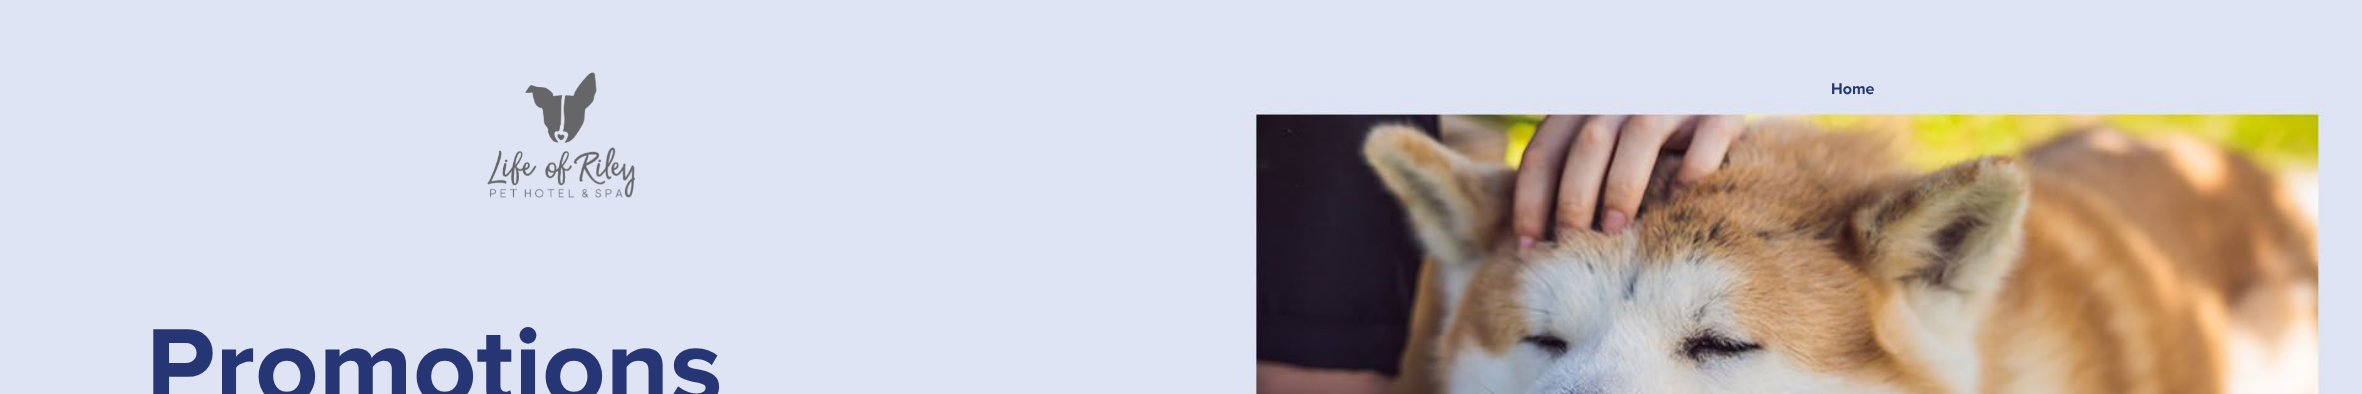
(async () => {
  const canvas = document.querySelector("canvas");
  canvas.width = 2362;
  canvas.height = 394;
  const ctx = canvas.getContext("2d");
  ctx.miterLimit = 4;
  ctx.fontKerning = "normal";
  async function loadImage(src) {
    const img = new Image();
    img.src = src;
    await img.decode();
    return img;
  }

  ctx.fillStyle = "#ffffff";
  ctx.fillRect(0, 0, 2362, 394);
  ctx.drawImage(await loadImage("img/2.png"), 0, 0, 2362, 394);
  ctx.drawImage(await loadImage("img/1.png"), 487, 72, 149, 126);
  ctx.font = "bold 16px Proxima Nova";
  ctx.fillStyle = "#263674";
  ctx.fillText("Home", 1831, 94);
  ctx.font = "bold 110.75px Proxima Nova";
  ctx.fillText("Promotions", 146, 403);
})();
